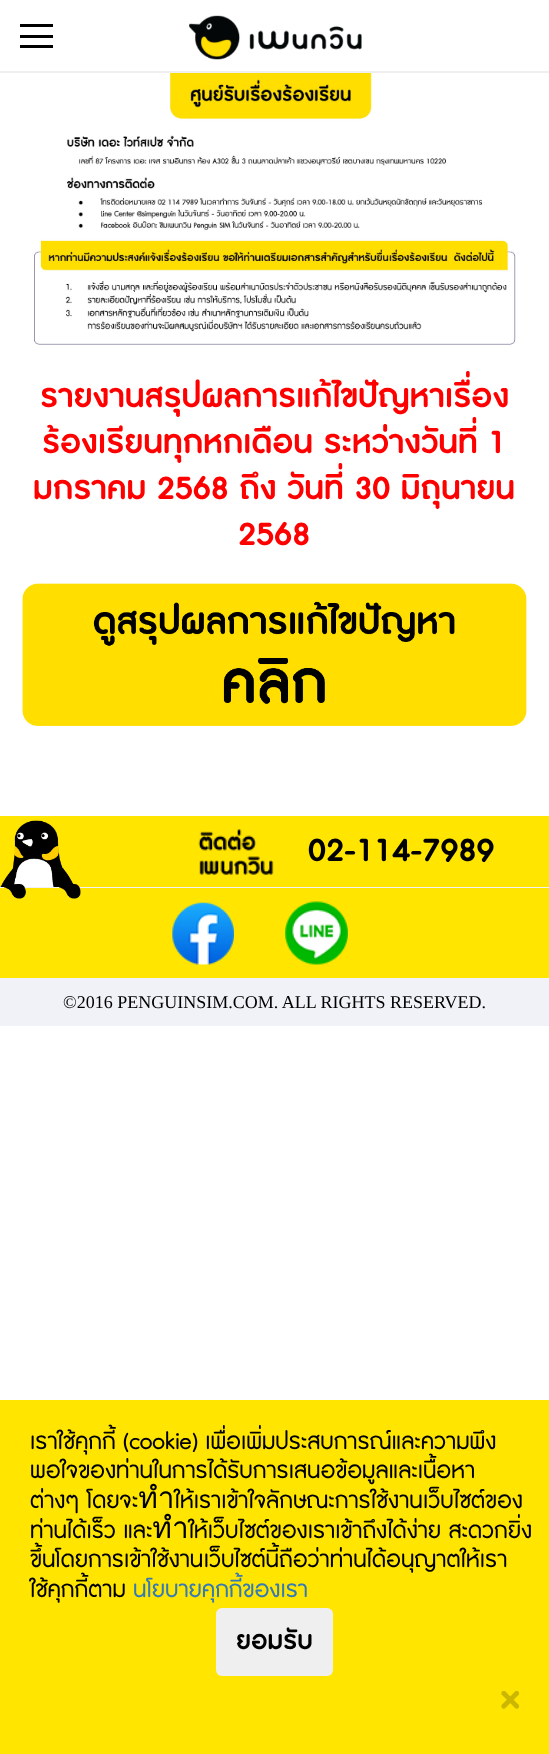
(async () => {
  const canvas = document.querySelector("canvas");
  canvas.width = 549;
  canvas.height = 1754;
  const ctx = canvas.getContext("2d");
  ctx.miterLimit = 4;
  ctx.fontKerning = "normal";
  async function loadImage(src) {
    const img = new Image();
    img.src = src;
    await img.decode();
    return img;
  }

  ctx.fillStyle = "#ffffff";
  ctx.fillRect(0, 0, 549, 1754);
  for (const [x, y, w, h, color] of [
    [0, 71, 549, 2, "#efefef"],
    [20, 35, 33, 3, "#000000"],
    [20, 24, 33, 3, "#000000"],
    [20, 45, 33, 3, "#000000"],
  ]) {
    ctx.fillStyle = color;
    ctx.fillRect(x, y, w, h);
  }
  ctx.drawImage(await loadImage("img/1.png"), 189, 15, 173, 45);
  ctx.drawImage(await loadImage("img/2.png"), 34, 73, 482, 272);
  ctx.drawImage(await loadImage("img/3.png"), 22, 583, 505, 143);
  for (const [x, y, w, h, color] of [
    [0, 887, 549, 1, "#f1f2f7"],
    [0, 816, 549, 71, "#ffe500"],
    [0, 888, 549, 90, "#ffe500"],
  ]) {
    ctx.fillStyle = color;
    ctx.fillRect(x, y, w, h);
  }
  ctx.drawImage(await loadImage("img/4.png"), 0, 820, 81, 79);
  ctx.drawImage(await loadImage("img/5.png"), 198, 829, 76, 46);
  ctx.drawImage(await loadImage("img/6.png"), 172, 902, 62, 63);
  ctx.drawImage(await loadImage("img/7.png"), 285, 901, 63, 64);
  ctx.fillStyle = "#f1f2f7";
  ctx.fillRect(0, 978, 549, 48);
  ctx.fillStyle = "#ffe500";
  ctx.fillRect(0, 1400, 549, 354);
  ctx.fillStyle = "#efefef";
  ctx.beginPath();
  ctx.roundRect(216, 1608, 117, 68, 6);
  ctx.fill();
  ctx.font = "bold 42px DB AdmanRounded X";
  ctx.fillStyle = "#ff0000";
  for (const [text, x, y] of [
    ["รายงานสรุปผลการแก้ไขปัญหาเรื่อง", 40, 407],
    ["ร้องเรียนทุกหกเดือน ระหว่างวันที่ 1", 42, 453],
    ["มกราคม 2568 ถึง วันที่ 30 มิถุนายน", 33, 499],
    ["2568", 238, 545],
  ]) {
    ctx.fillText(text, x, y);
  }
  ctx.fillStyle = "#000000";
  ctx.fillText("02-114-7989", 308, 861);
  ctx.font = "18px Liberation Serif";
  ctx.fillText("©2016 PENGUINSIM.COM. ALL RIGHTS RESERVED.", 63, 1008);
  ctx.font = "29.75px DB AdmanRounded X";
  for (const [text, x, y] of [
    ["เราใช้คุกกี้ (cookie) เพื่อเพิ่มประสบการณ์และความพึง", 30, 1449],
    ["พอใจของท่านในการได้รับการเสนอข้อมูลและเนื้อหา", 30, 1478],
    ["ต่างๆ โดยจะทำให้เราเข้าใจลักษณะการใช้งานเว็บไซต์ของ", 30, 1508],
    ["ท่านได้เร็ว และทำให้เว็บไซต์ของเราเข้าถึงได้ง่าย สะดวกยิ่ง", 30, 1538],
    ["ขึ้นโดยการเข้าใช้งานเว็บไซต์นี้ถือว่าท่านได้อนุญาตให้เรา", 30, 1567],
    ["ใช้คุกกี้ตาม", 30, 1597],
  ]) {
    ctx.fillText(text, x, y);
  }
  ctx.fillStyle = "#337ab7";
  ctx.fillText("นโยบายคุกกี้ของเรา", 133, 1597);
  ctx.font = "bold 33px DB AdmanRounded X";
  ctx.fillStyle = "#000000";
  ctx.fillText("ยอมรับ", 236, 1649);
  ctx.font = "bold 50px 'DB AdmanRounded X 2'";
  ctx.fillStyle = "#ccb700";
  ctx.fillText("×", 500, 1710);
})();
